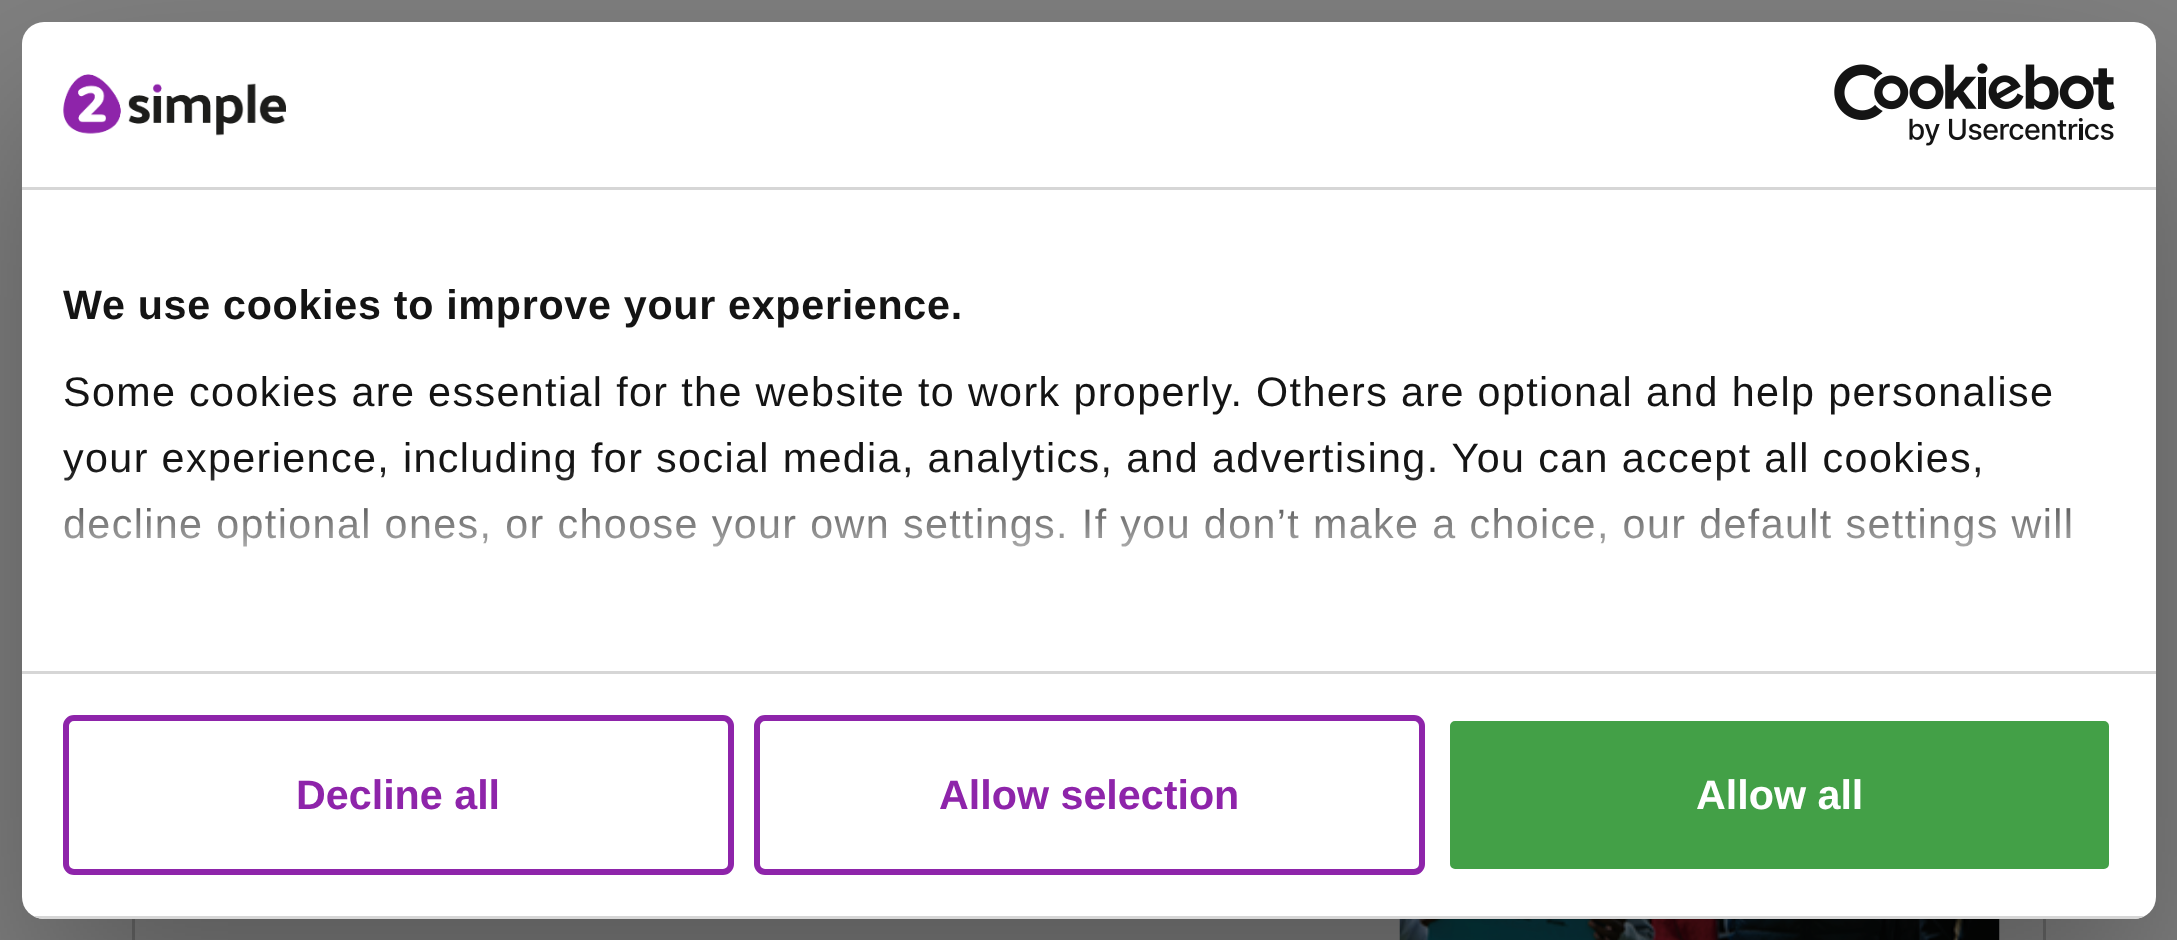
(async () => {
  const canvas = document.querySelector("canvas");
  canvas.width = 2177;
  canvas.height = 940;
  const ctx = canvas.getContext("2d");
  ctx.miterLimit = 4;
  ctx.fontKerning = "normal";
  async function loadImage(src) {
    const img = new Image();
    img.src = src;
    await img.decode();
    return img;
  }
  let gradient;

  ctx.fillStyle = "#808080";
  ctx.fillRect(0, 0, 2177, 940);
  ctx.strokeStyle = "#696969";
  ctx.lineWidth = 3;
  ctx.strokeRect(133.5, 389.5, 1911, 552);
  ctx.drawImage(await loadImage("img/3.png"), 1399, 919, 601, 21);
  ctx.fillStyle = "rgba(0, 0, 0, 0.3)";
  ctx.filter = "blur(93.5px)";
  ctx.beginPath();
  ctx.roundRect(22, 110, 2134, 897, 22);
  ctx.fill();
  ctx.filter = "none";
  ctx.fillStyle = "#ffffff";
  ctx.beginPath();
  ctx.roundRect(22, 22, 2134, 897, 22);
  ctx.fill();
  ctx.fillStyle = "#d6d6d6";
  ctx.fillRect(22, 187, 2134, 3);
  ctx.drawImage(await loadImage("img/1.png"), 63, 74, 223, 62);
  ctx.drawImage(await loadImage("img/2.png"), 1834, 63, 281, 83);
  ctx.fillRect(22, 671, 2134, 3);
  ctx.save();
  ctx.beginPath();
  ctx.roundRect(22, 22, 2134, 897, 22);
  ctx.clip();
  ctx.fillRect(33, 916, 2112, 3);
  ctx.restore();
  ctx.beginPath();
  ctx.roundRect(66, 718, 665, 154, 8);
  ctx.strokeStyle = "#8e24aa";
  ctx.lineWidth = 6;
  ctx.stroke();
  ctx.beginPath();
  ctx.roundRect(757, 718, 665, 154, 8);
  ctx.stroke();
  ctx.fillStyle = "#43a047";
  ctx.beginPath();
  ctx.roundRect(1447, 718, 665, 154, 8);
  ctx.fill();
  ctx.strokeStyle = "#ffffff";
  ctx.stroke();
  ctx.letterSpacing = "0.7px";
  ctx.font = "bold 41.25px Liberation Sans";
  ctx.fillStyle = "#141414";
  ctx.fillText("We use cookies to improve your experience.", 63, 319);
  ctx.letterSpacing = "1.38px";
  ctx.font = "41.25px Liberation Sans";
  for (const [text, x, y] of [
    ["Some cookies are essential for the website to work properly. Others are optional and help personalise", 63, 406],
    ["your experience, including for social media, analytics, and advertising. You can accept all cookies,", 63, 472],
    ["decline optional ones, or choose your own settings. If you don’t make a choice, our default settings will", 63, 538],
  ]) {
    ctx.fillText(text, x, y);
  }
  gradient = ctx.createLinearGradient(1071, 671, 1071, 465);
  gradient.addColorStop(0, "#ffffff");
  gradient.addColorStop(0.5, "rgba(255, 255, 255, 0.8)");
  gradient.addColorStop(1, "rgba(255, 255, 255, 0)");
  ctx.fillStyle = gradient;
  ctx.fillRect(64, 468, 2006, 79);
  ctx.letterSpacing = "0px";
  ctx.font = "bold 41.25px Liberation Sans";
  ctx.fillStyle = "#8e24aa";
  ctx.fillText("Decline all", 296, 809);
  ctx.fillText("Allow selection", 939, 809);
  ctx.fillStyle = "#ffffff";
  ctx.fillText("Allow all", 1696, 809);
})();
